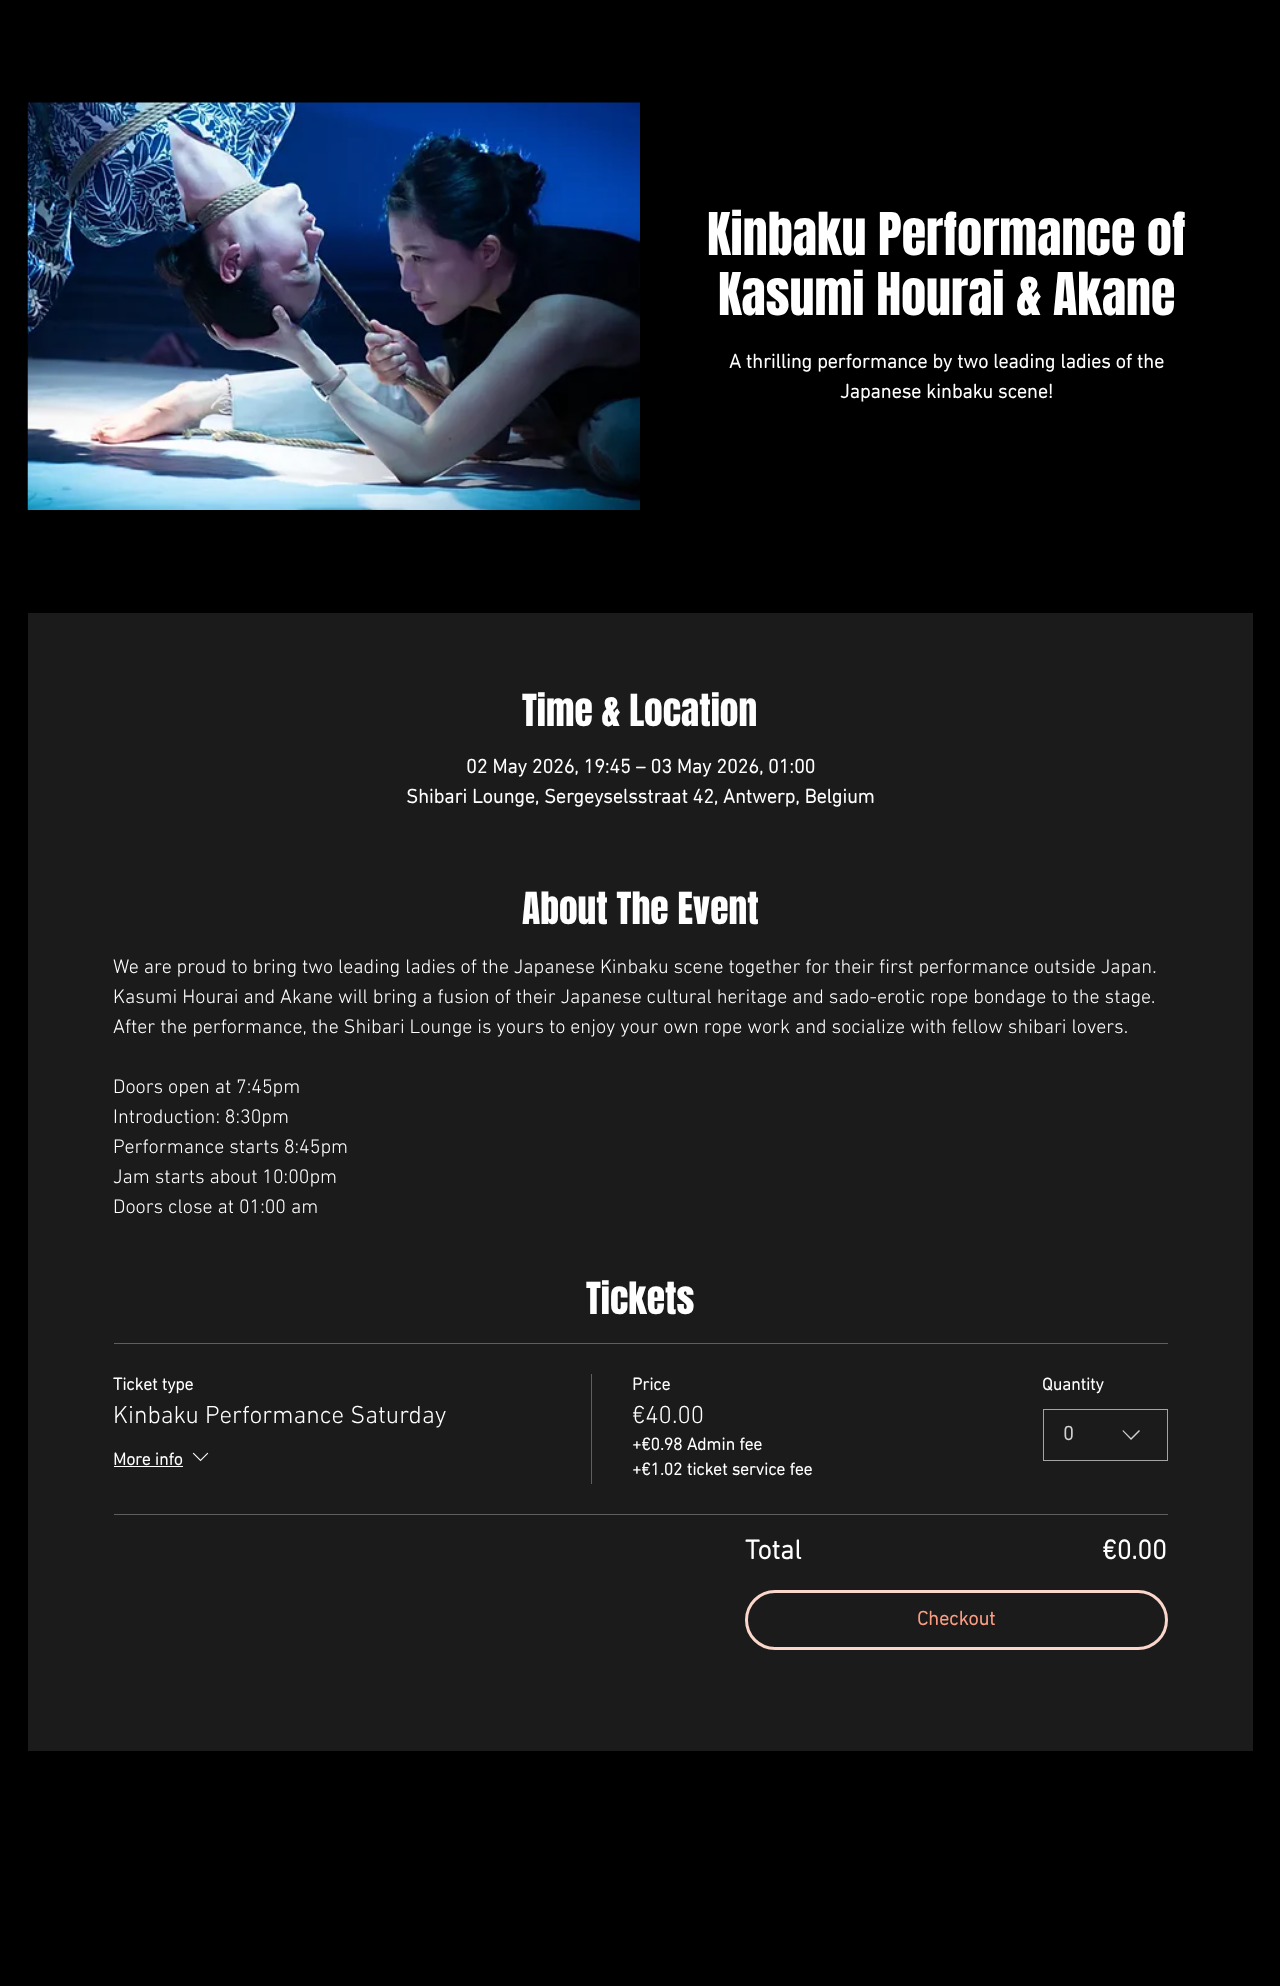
(async () => {
  const canvas = document.querySelector("canvas");
  canvas.width = 1280;
  canvas.height = 1986;
  const ctx = canvas.getContext("2d");
  ctx.miterLimit = 4;
  ctx.fontKerning = "normal";
  async function loadImage(src) {
    const img = new Image();
    img.src = src;
    await img.decode();
    return img;
  }
  let path;

  ctx.fillStyle = "#000000";
  ctx.fillRect(0, 0, 1280, 1986);
  ctx.drawImage(await loadImage("img/1.png"), 27, 102, 613, 408);
  for (const [x, y, w, h, color] of [
    [28, 613, 1225, 1138, "#1b1b1b"],
    [114, 1343, 1054, 1, "#5f5f5f"],
    [114, 1514, 1054, 1, "#5f5f5f"],
    [114, 1466, 69, 1, "#ffffff"],
  ]) {
    ctx.fillStyle = color;
    ctx.fillRect(x, y, w, h);
  }
  ctx.drawImage(await loadImage("img/2.png"), 192, 1452, 17, 10);
  ctx.fillStyle = "#5f5f5f";
  ctx.fillRect(591, 1374, 1, 110);
  ctx.strokeStyle = "#a4a4a4";
  ctx.strokeRect(1043.5, 1409.5, 124, 51);
  ctx.fillStyle = "#d1d1d1";
  path = new Path2D("M1139 1430L1140 1431L1131 1440L1122.5 1431L1123 1430L1131 1438Z");
  ctx.fill(path, "evenodd");
  ctx.beginPath();
  ctx.roundRect(746.5, 1591.5, 420, 57, 28.5);
  ctx.strokeStyle = "#fbd6cb";
  ctx.lineWidth = 3;
  ctx.stroke();
  ctx.font = "50px Anton";
  ctx.fillStyle = "#ffffff";
  ctx.fillText("Kinbaku Performance of", 707, 255);
  ctx.fillText("Kasumi Hourai & Akane", 718, 315);
  ctx.font = "bold 20px 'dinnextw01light'";
  ctx.fillText("A thrilling performance by two leading ladies of the", 729, 368);
  ctx.fillText("Japanese kinbaku scene!", 840, 398);
  ctx.font = "37.5px Anton";
  ctx.fillText("Time & Location", 522, 726);
  ctx.font = "bold 20px 'dinnextw01light'";
  ctx.fillText("02 May 2026, 19:45 – 03 May 2026, 01:00", 466, 773);
  ctx.fillText("Shibari Lounge, Sergeyselsstraat 42, Antwerp, Belgium", 406, 803);
  ctx.font = "37.5px Anton";
  ctx.fillText("About The Event", 522, 924);
  ctx.font = "300 20px 'dinnextw01light'";
  for (const [text, x, y] of [
    ["We are proud to bring two leading ladies of the Japanese Kinbaku scene together for their first performance outside Japan.", 113, 973],
    ["Kasumi Hourai and Akane will bring a fusion of their Japanese cultural heritage and sado-erotic rope bondage to the stage.", 113, 1003],
    ["After the performance, the Shibari Lounge is yours to enjoy your own rope work and socialize with fellow shibari lovers.", 113, 1033],
    ["Doors open at 7:45pm", 113, 1093],
    ["Introduction: 8:30pm", 113, 1123],
    ["Performance starts 8:45pm", 113, 1153],
    ["Jam starts about 10:00pm", 113, 1183],
    ["Doors close at 01:00 am", 113, 1213],
  ]) {
    ctx.fillText(text, x, y);
  }
  ctx.font = "37.5px Anton";
  ctx.fillText("Tickets", 586, 1314);
  ctx.font = "bold 17.5px 'dinnextw01light'";
  ctx.fillText("Ticket type", 113, 1390);
  ctx.font = "300 25px 'dinnextw01light'";
  ctx.fillText("Kinbaku Performance Saturday", 113, 1423);
  ctx.font = "bold 17.5px 'dinnextw01light'";
  ctx.fillText("More info", 113, 1465);
  ctx.fillText("Price", 632, 1390);
  ctx.font = "300 25px 'dinnextw01light'";
  ctx.fillText("€40.00", 632, 1423);
  ctx.font = "bold 17.5px 'dinnextw01light'";
  for (const [text, x, y] of [
    ["+€0.98 Admin fee", 632, 1450],
    ["+€1.02 ticket service fee", 632, 1475],
    ["Quantity", 1042, 1390],
  ]) {
    ctx.fillText(text, x, y);
  }
  ctx.font = "bold 20px 'dinnextw01light'";
  ctx.fillStyle = "#d1d1d1";
  ctx.fillText("0", 1063, 1440);
  ctx.font = "bold 27.5px 'dinnextw01light'";
  ctx.fillStyle = "#ffffff";
  ctx.fillText("Total", 745, 1559);
  ctx.fillText("€0.00", 1102, 1559);
  ctx.font = "bold 20px 'dinnextw01light'";
  ctx.fillStyle = "#fb9d82";
  ctx.fillText("Checkout", 917, 1625);
})();
